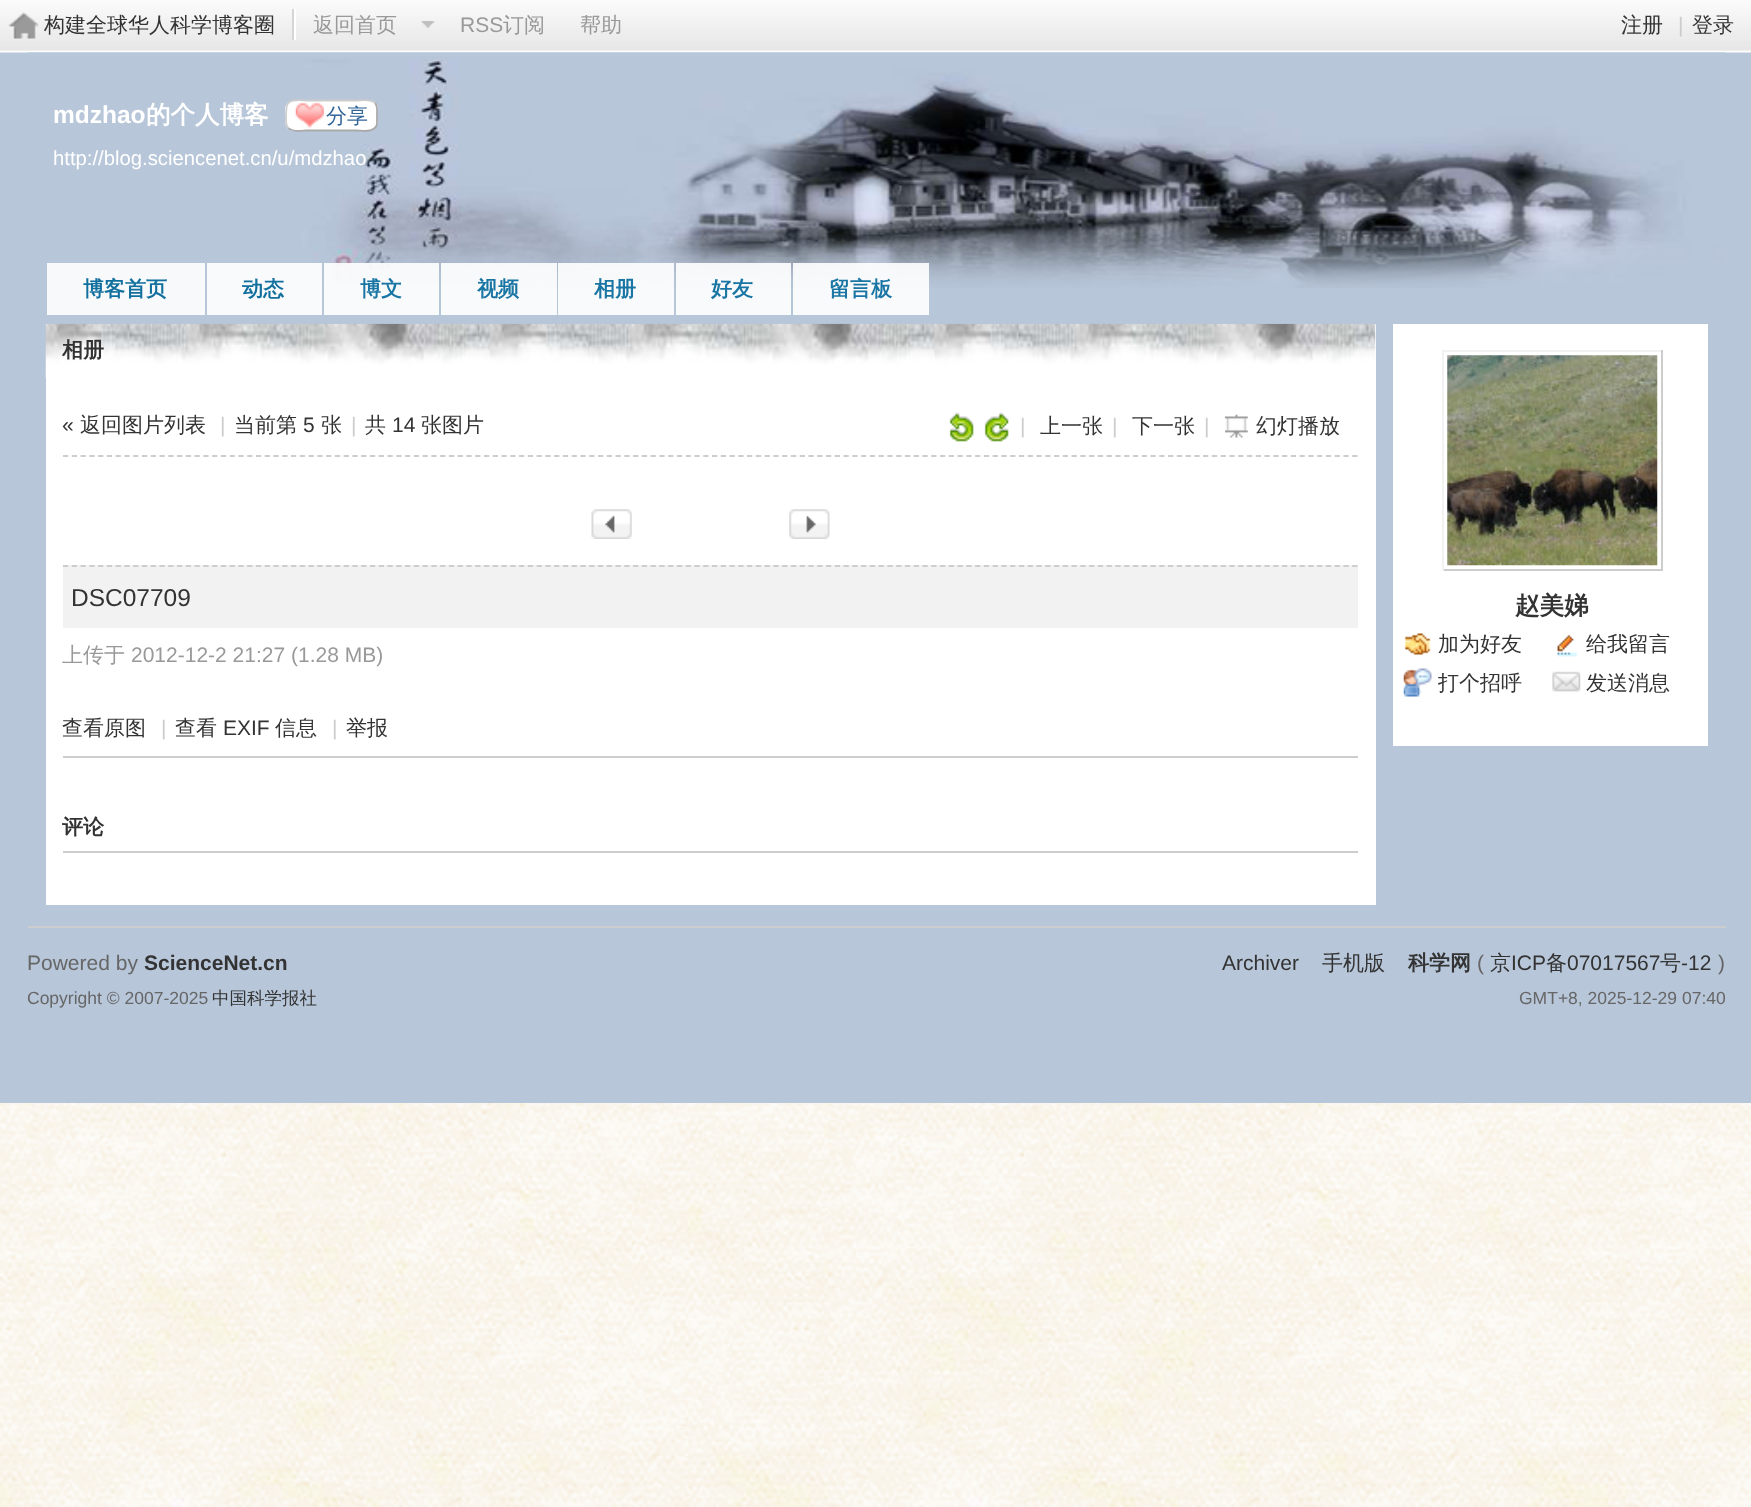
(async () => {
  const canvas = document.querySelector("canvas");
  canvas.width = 1751;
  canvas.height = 1507;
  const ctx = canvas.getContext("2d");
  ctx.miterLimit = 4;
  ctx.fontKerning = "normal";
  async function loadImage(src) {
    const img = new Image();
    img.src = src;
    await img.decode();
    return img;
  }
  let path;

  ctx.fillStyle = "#ffffff";
  ctx.fillRect(0, 0, 1751, 1507);
  ctx.drawImage(await loadImage("img/1.png"), 0, 1103, 1751, 404);
  ctx.fillStyle = "#b7c6d9";
  ctx.fillRect(0, 52, 1751, 1051);
  ctx.drawImage(await loadImage("img/2.png"), 0, 0, 1751, 53);
  ctx.drawImage(await loadImage("img/3.png"), 8, 12, 31, 27);
  ctx.fillStyle = "#ffffff";
  ctx.fillRect(294, 9, 2, 31);
  ctx.fillStyle = "#d5d5d5";
  ctx.fillRect(292, 9, 2, 31);
  ctx.drawImage(await loadImage("img/4.png"), 421, 21, 14, 7);
  ctx.drawImage(await loadImage("img/5.png"), 28, 52, 1698, 236);
  ctx.fillStyle = "#ffffff";
  ctx.beginPath();
  ctx.roundRect(285, 100, 93, 31, 9);
  ctx.fill();
  ctx.drawImage(await loadImage("img/6.png"), 295, 102, 29, 27);
  path = new Path2D("M375 103C378 106 377 111.5 377 115.5V124C375 133 362.5 130.5 356.5 130.5H306.5C302.5 130.5 292.5 132.5 288.5 128");
  ctx.strokeStyle = "#a9a9a9";
  ctx.lineWidth = 1.8;
  ctx.stroke(path);
  path = new Path2D("M288.5 128C285 125 286 119.5 286 115.5L286.5 107C288 98 300.5 100.5 306.5 100.5H356.5C361 100.5 370.5 98.5 375 103");
  ctx.strokeStyle = "#cccccc";
  ctx.stroke(path);
  for (const [x, y, w, h, color] of [
    [47, 263, 158, 52, "#f8f9fb"],
    [207, 263, 115, 52, "rgba(255, 255, 255, 0.9)"],
    [324, 263, 115, 52, "rgba(255, 255, 255, 0.9)"],
    [441, 263, 116, 52, "rgba(255, 255, 255, 0.9)"],
    [558, 263, 116, 52, "rgba(255, 255, 255, 0.9)"],
    [676, 263, 115, 52, "rgba(255, 255, 255, 0.9)"],
    [793, 263, 136, 52, "rgba(255, 255, 255, 0.9)"],
    [46, 324, 1330, 581, "#ffffff"],
  ]) {
    ctx.fillStyle = color;
    ctx.fillRect(x, y, w, h);
  }
  ctx.drawImage(await loadImage("img/7.png"), 45, 323, 1331, 55);
  path = new Path2D("M63 456H1358");
  ctx.strokeStyle = "#cdcdcd";
  ctx.setLineDash([5.25, 3.52]);
  ctx.stroke(path);
  ctx.drawImage(await loadImage("img/8.png"), 949, 412, 25, 30);
  ctx.drawImage(await loadImage("img/9.png"), 984, 412, 25, 30);
  ctx.drawImage(await loadImage("img/10.png"), 1225, 414, 23, 24);
  ctx.drawImage(await loadImage("img/11.png"), 591, 509, 41, 30);
  ctx.drawImage(await loadImage("img/12.png"), 789, 509, 41, 30);
  ctx.fillStyle = "#cdcdcd";
  ctx.fillRect(63, 756, 1295, 2);
  ctx.fillStyle = "#f2f2f2";
  ctx.fillRect(63, 565, 1295, 63);
  path = new Path2D("M63 566H1358");
  ctx.stroke(path);
  for (const [x, y, w, h, color] of [
    [63, 851, 1295, 2, "#cdcdcd"],
    [1393, 324, 315, 422, "#ffffff"],
    [1442, 350, 221, 2, "#f2f2f2"],
    [1661, 350, 2, 221, "#cdcdcd"],
    [1442, 569, 221, 2, "#cdcdcd"],
    [1442, 350, 2, 221, "#f2f2f2"],
  ]) {
    ctx.fillStyle = color;
    ctx.fillRect(x, y, w, h);
  }
  ctx.drawImage(await loadImage("img/13.png"), 1447, 355, 211, 211);
  ctx.drawImage(await loadImage("img/14.png"), 1404, 633, 27, 22);
  ctx.drawImage(await loadImage("img/15.png"), 1557, 634, 21, 23);
  ctx.drawImage(await loadImage("img/16.png"), 1403, 668, 29, 29);
  ctx.drawImage(await loadImage("img/17.png"), 1552, 671, 29, 21);
  ctx.fillStyle = "#cdcdcd";
  ctx.fillRect(28, 926, 1698, 2);
  ctx.font = "500 21px WenQuanYi Zen Hei";
  ctx.fillStyle = "#333333";
  ctx.fillText("构建全球华人科学博客圈", 44, 32);
  ctx.fillStyle = "#999999";
  ctx.fillText("返回首页", 313, 32);
  ctx.font = "21px Liberation Sans";
  ctx.fillText("RSS", 460, 32);
  ctx.font = "500 21px WenQuanYi Zen Hei";
  ctx.fillText("订阅", 503, 32);
  ctx.fillText("帮助", 580, 32);
  ctx.fillStyle = "#333333";
  ctx.fillText("注册", 1621, 32);
  ctx.font = "21px Liberation Sans";
  ctx.fillStyle = "#cccccc";
  ctx.fillText("|", 1678, 32);
  ctx.font = "500 21px WenQuanYi Zen Hei";
  ctx.fillStyle = "#333333";
  ctx.fillText("登录", 1692, 32);
  ctx.font = "bold 24.5px Liberation Sans";
  ctx.fillStyle = "#ffffff";
  ctx.fillText("mdzhao", 53, 123);
  ctx.font = "bold 24.5px WenQuanYi Zen Hei";
  ctx.fillText("的个人博客", 146, 123);
  ctx.font = "500 21px WenQuanYi Zen Hei";
  ctx.fillStyle = "#336699";
  ctx.fillText("分享", 326, 123);
  ctx.font = "20.3px Liberation Sans";
  ctx.fillStyle = "#ffffff";
  ctx.fillText("http://blog.sciencenet.cn/u/mdzhao", 53, 165);
  ctx.font = "bold 21px WenQuanYi Zen Hei";
  ctx.fillStyle = "#12709f";
  ctx.fillText("博客首页", 83, 296);
  ctx.fillText("动态", 242, 296);
  ctx.fillStyle = "#1975a3";
  for (const [text, x, y] of [
    ["博文", 360, 296],
    ["视频", 477, 296],
    ["相册", 594, 296],
    ["好友", 711, 296],
    ["留言板", 829, 296],
  ]) {
    ctx.fillText(text, x, y);
  }
  ctx.fillStyle = "#333333";
  ctx.fillText("相册", 62, 357);
  ctx.font = "21px Liberation Sans";
  ctx.fillText("«", 62, 432);
  ctx.font = "500 21px WenQuanYi Zen Hei";
  ctx.fillText("返回图片列表", 80, 432);
  ctx.font = "21px Liberation Sans";
  ctx.fillStyle = "#cccccc";
  ctx.fillText("|", 220, 432);
  ctx.font = "500 21px WenQuanYi Zen Hei";
  ctx.fillStyle = "#333333";
  ctx.fillText("当前第", 234, 432);
  ctx.font = "21px Liberation Sans";
  ctx.fillText("5", 303, 432);
  ctx.font = "500 21px WenQuanYi Zen Hei";
  ctx.fillText("张", 321, 432);
  ctx.font = "21px Liberation Sans";
  ctx.fillStyle = "#cccccc";
  ctx.fillText("|", 351, 432);
  ctx.font = "500 21px WenQuanYi Zen Hei";
  ctx.fillStyle = "#333333";
  ctx.fillText("共", 365, 432);
  ctx.font = "21px Liberation Sans";
  ctx.fillText("14", 392, 432);
  ctx.font = "500 21px WenQuanYi Zen Hei";
  ctx.fillText("张图片", 421, 432);
  ctx.font = "21px Liberation Sans";
  ctx.fillStyle = "#cccccc";
  ctx.fillText("|", 1020, 433);
  ctx.font = "500 21px WenQuanYi Zen Hei";
  ctx.fillStyle = "#333333";
  ctx.fillText("上一张", 1040, 433);
  ctx.font = "21px Liberation Sans";
  ctx.fillStyle = "#cccccc";
  ctx.fillText("|", 1112, 433);
  ctx.font = "500 21px WenQuanYi Zen Hei";
  ctx.fillStyle = "#333333";
  ctx.fillText("下一张", 1132, 433);
  ctx.font = "21px Liberation Sans";
  ctx.fillStyle = "#cccccc";
  ctx.fillText("|", 1204, 433);
  ctx.font = "500 21px WenQuanYi Zen Hei";
  ctx.fillStyle = "#333333";
  ctx.fillText("幻灯播放", 1256, 433);
  ctx.font = "24.5px Liberation Sans";
  ctx.fillText("DSC07709", 71, 606);
  ctx.font = "500 21px WenQuanYi Zen Hei";
  ctx.fillStyle = "#999999";
  ctx.fillText("上传于", 62, 662);
  ctx.font = "21px Liberation Sans";
  ctx.fillText("2012-12-2 21:27 (1.28 MB)", 131, 662);
  ctx.font = "500 21px WenQuanYi Zen Hei";
  ctx.fillStyle = "#333333";
  ctx.fillText("查看原图", 62, 735);
  ctx.font = "21px Liberation Sans";
  ctx.fillStyle = "#cccccc";
  ctx.fillText("|", 161, 735);
  ctx.font = "500 21px WenQuanYi Zen Hei";
  ctx.fillStyle = "#333333";
  ctx.fillText("查看", 175, 735);
  ctx.font = "21px Liberation Sans";
  ctx.fillText("EXIF", 223, 735);
  ctx.font = "500 21px WenQuanYi Zen Hei";
  ctx.fillText("信息", 275, 735);
  ctx.font = "21px Liberation Sans";
  ctx.fillStyle = "#cccccc";
  ctx.fillText("|", 332, 735);
  ctx.font = "500 21px WenQuanYi Zen Hei";
  ctx.fillStyle = "#333333";
  ctx.fillText("举报", 346, 735);
  ctx.font = "bold 21px WenQuanYi Zen Hei";
  ctx.fillText("评论", 62, 834);
  ctx.font = "bold 24.5px WenQuanYi Zen Hei";
  ctx.fillText("赵美娣", 1515, 614);
  ctx.font = "500 21px WenQuanYi Zen Hei";
  for (const [text, x, y] of [
    ["加为好友", 1438, 651],
    ["给我留言", 1586, 651],
    ["打个招呼", 1438, 690],
    ["发送消息", 1586, 690],
  ]) {
    ctx.fillText(text, x, y);
  }
  ctx.font = "21px Liberation Sans";
  ctx.fillStyle = "#666666";
  ctx.fillText("Powered by", 27, 970);
  ctx.font = "bold 21px Liberation Sans";
  ctx.fillStyle = "#333333";
  ctx.fillText("ScienceNet.cn", 144, 970);
  ctx.font = "17.5px Liberation Sans";
  ctx.fillStyle = "#666666";
  ctx.fillText("Copyright © 2007-2025", 27, 1004);
  ctx.font = "500 17.5px WenQuanYi Zen Hei";
  ctx.fillStyle = "#333333";
  ctx.fillText("中国科学报社", 212, 1004);
  ctx.font = "21px Liberation Sans";
  ctx.fillText("Archiver", 1222, 970);
  ctx.font = "500 21px WenQuanYi Zen Hei";
  ctx.fillText("手机版", 1322, 970);
  ctx.font = "bold 21px WenQuanYi Zen Hei";
  ctx.fillText("科学网", 1408, 970);
  ctx.font = "21px Liberation Sans";
  ctx.fillStyle = "#666666";
  ctx.fillText("(", 1477, 970);
  ctx.font = "500 21px WenQuanYi Zen Hei";
  ctx.fillStyle = "#333333";
  ctx.fillText("京", 1490, 970);
  ctx.font = "21px Liberation Sans";
  ctx.fillText("ICP", 1511, 970);
  ctx.font = "500 21px WenQuanYi Zen Hei";
  ctx.fillText("备", 1546, 970);
  ctx.font = "21px Liberation Sans";
  ctx.fillText("07017567", 1567, 970);
  ctx.font = "500 21px WenQuanYi Zen Hei";
  ctx.fillText("号", 1660, 970);
  ctx.font = "21px Liberation Sans";
  ctx.fillText("-12", 1681, 970);
  ctx.fillStyle = "#666666";
  ctx.fillText(")", 1718, 970);
  ctx.font = "17.5px Liberation Sans";
  ctx.fillText("GMT+8, 2025-12-29 07:40", 1519, 1004);
})();
